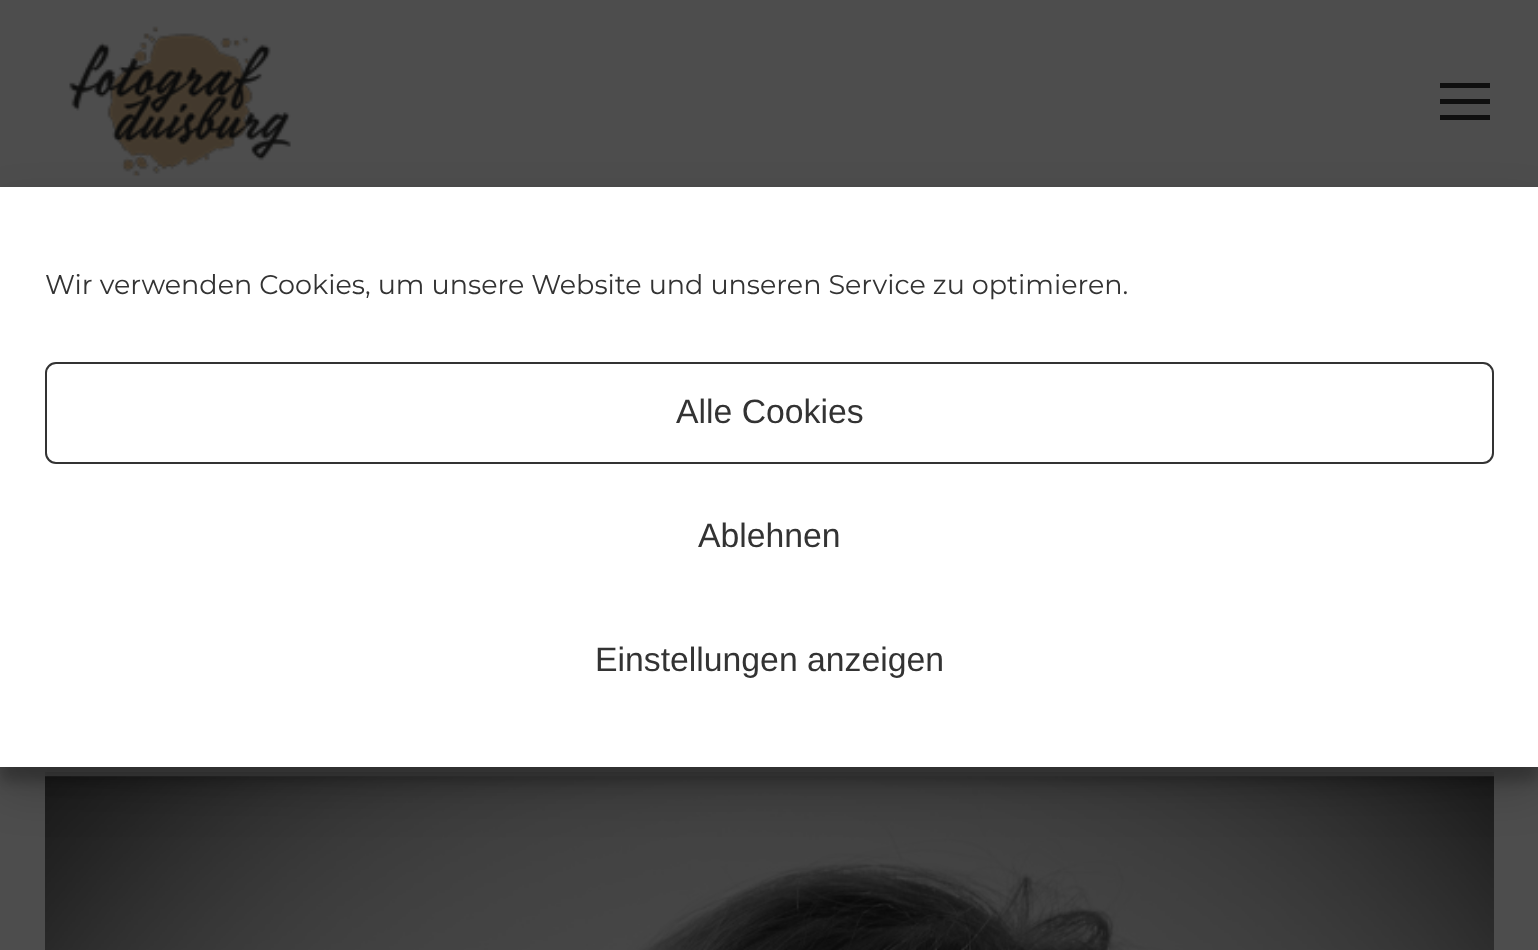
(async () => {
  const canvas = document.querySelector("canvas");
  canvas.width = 1538;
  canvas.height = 950;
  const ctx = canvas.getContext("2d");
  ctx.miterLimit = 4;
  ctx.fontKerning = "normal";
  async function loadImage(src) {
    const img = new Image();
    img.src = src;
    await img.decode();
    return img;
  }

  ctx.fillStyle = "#4d4d4d";
  ctx.fillRect(0, 0, 1538, 950);
  ctx.drawImage(await loadImage("img/1.png"), 69, 26, 222, 151);
  for (const [x, y, w, h, color] of [
    [1440, 83, 50, 5, "#0f0f0f"],
    [1440, 99, 50, 5, "#0f0f0f"],
    [1440, 115, 50, 5, "#0f0f0f"],
    [45, 772, 1449, 5, "#464646"],
  ]) {
    ctx.fillStyle = color;
    ctx.fillRect(x, y, w, h);
  }
  ctx.drawImage(await loadImage("img/2.png"), 45, 776, 1449, 174);
  ctx.fillStyle = "rgba(0, 0, 0, 0.23)";
  ctx.filter = "blur(7px)";
  ctx.beginPath();
  ctx.rect(0, 200, 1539, 581);
  ctx.fill();
  ctx.filter = "none";
  ctx.fillStyle = "rgba(0, 0, 0, 0.19)";
  ctx.filter = "blur(22.5px)";
  ctx.beginPath();
  ctx.rect(0, 209, 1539, 581);
  ctx.fill();
  ctx.filter = "none";
  ctx.fillStyle = "#ffffff";
  ctx.fillRect(0, 187, 1538, 580);
  ctx.beginPath();
  ctx.roundRect(46, 363, 1447, 100, 10);
  ctx.strokeStyle = "#333333";
  ctx.lineWidth = 2;
  ctx.stroke();
  ctx.font = "27px Montserrat";
  ctx.fillStyle = "#333333";
  ctx.fillText("Wir verwenden Cookies, um unsere Website und unseren Service zu optimieren.", 45, 294);
  ctx.font = "33.75px Liberation Sans";
  for (const [text, x, y] of [
    ["Alle Cookies", 676, 423],
    ["Ablehnen", 698, 547],
    ["Einstellungen anzeigen", 595, 671],
  ]) {
    ctx.fillText(text, x, y);
  }
})();
